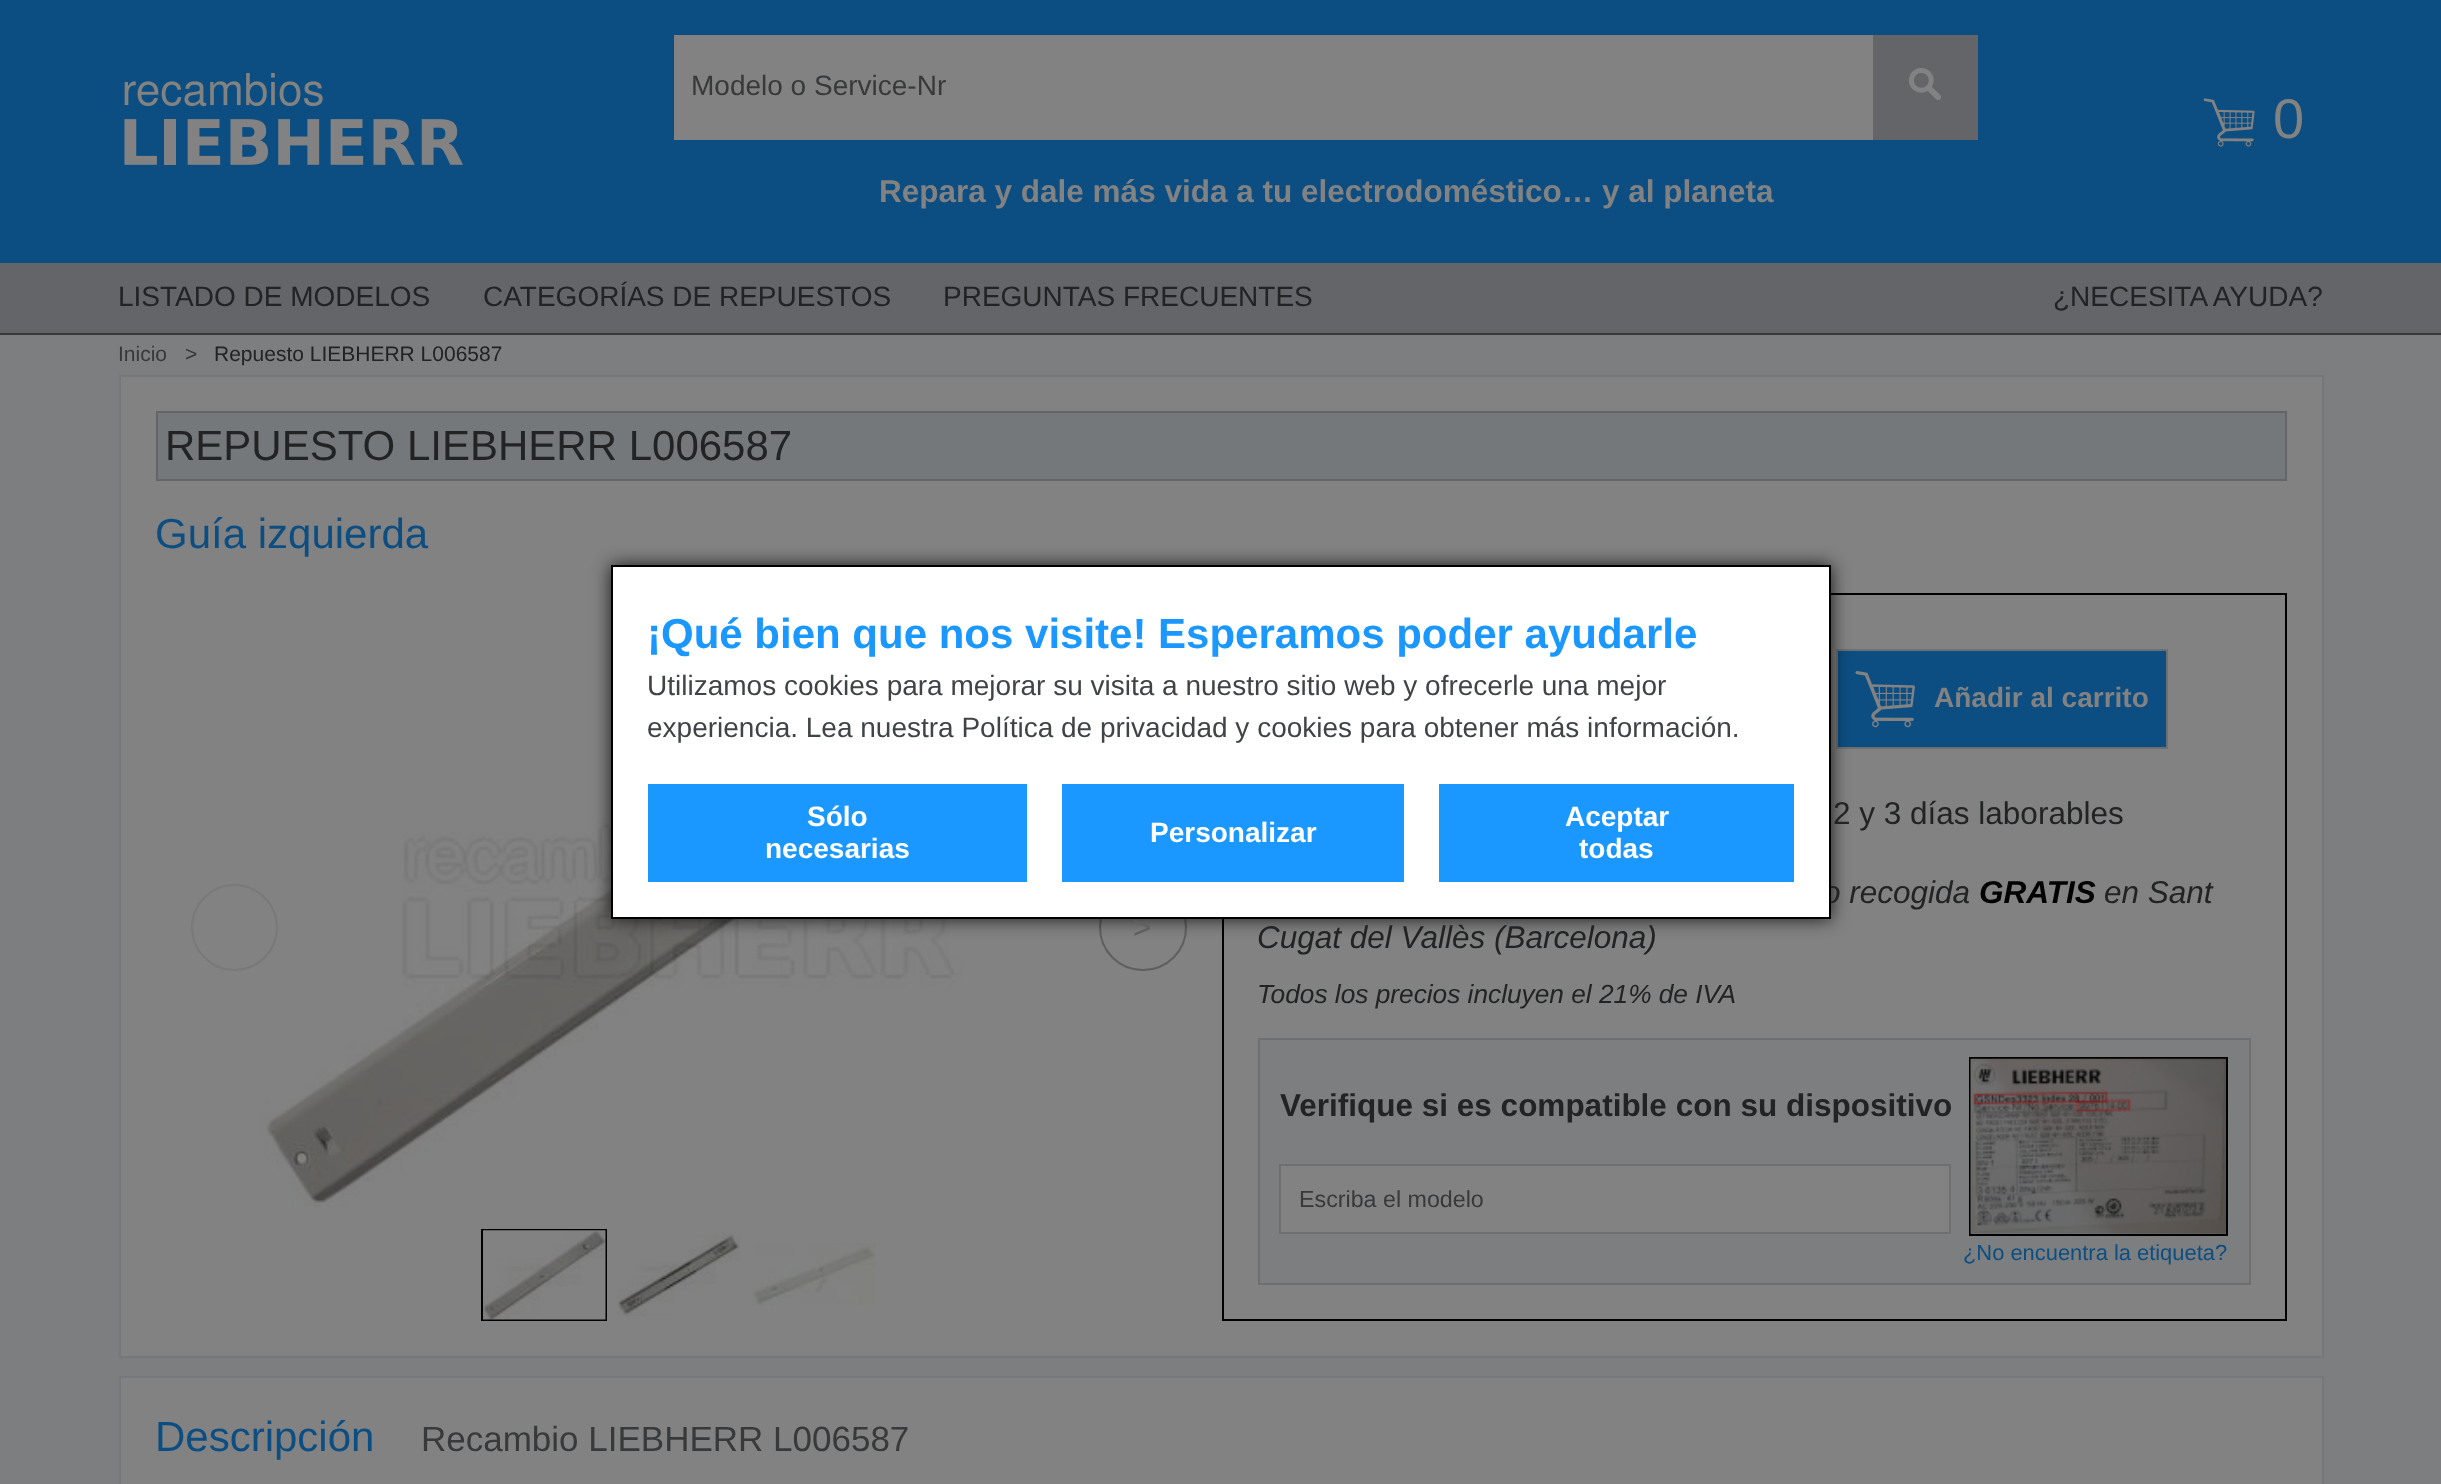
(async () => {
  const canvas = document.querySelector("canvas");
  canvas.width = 2441;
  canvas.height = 1484;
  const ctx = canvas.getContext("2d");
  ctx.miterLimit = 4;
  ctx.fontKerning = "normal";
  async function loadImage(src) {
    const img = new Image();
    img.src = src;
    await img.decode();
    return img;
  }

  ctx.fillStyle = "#7c7e80";
  ctx.fillRect(0, 0, 2441, 1484);
  ctx.fillStyle = "#0d4e82";
  ctx.fillRect(0, 0, 2441, 263);
  ctx.drawImage(await loadImage("img/1.png"), 124, 72, 339, 93);
  ctx.fillStyle = "#828282";
  ctx.fillRect(674, 35, 1199, 105);
  ctx.fillStyle = "#636568";
  ctx.fillRect(1873, 35, 105, 105);
  ctx.drawImage(await loadImage("img/2.png"), 1908, 68, 33, 32);
  ctx.drawImage(await loadImage("img/3.png"), 2203, 98, 52, 49);
  ctx.fillRect(0, 263, 2441, 70);
  ctx.fillStyle = "#37393b";
  ctx.fillRect(0, 333, 2441, 2);
  ctx.fillStyle = "#828282";
  ctx.beginPath();
  ctx.rect(120, 376, 2203, 981);
  ctx.fill();
  ctx.strokeStyle = "#75787a";
  ctx.lineWidth = 2;
  ctx.stroke();
  ctx.fillStyle = "#75787a";
  ctx.beginPath();
  ctx.rect(157, 412, 2129, 68);
  ctx.fill();
  ctx.strokeStyle = "#636568";
  ctx.stroke();
  ctx.drawImage(await loadImage("img/4.png"), 263, 597, 826, 611);
  ctx.beginPath();
  ctx.arc(234.5, 927.5, 42.5, 0, Math.PI * 2);
  ctx.strokeStyle = "#797979";
  ctx.stroke();
  ctx.beginPath();
  ctx.roundRect(1100, 885, 86, 85, 42.5);
  ctx.strokeStyle = "#5f5f5f";
  ctx.stroke();
  ctx.strokeStyle = "#000000";
  ctx.strokeRect(482, 1230, 124, 90);
  ctx.drawImage(await loadImage("img/5.png"), 483, 1230, 123, 90);
  ctx.drawImage(await loadImage("img/6.png"), 617, 1234, 123, 82);
  ctx.drawImage(await loadImage("img/7.png"), 752, 1242, 123, 64);
  ctx.strokeRect(1223, 594, 1063, 726);
  ctx.fillStyle = "#0d4e82";
  ctx.beginPath();
  ctx.rect(1837, 650, 330, 98);
  ctx.fill();
  ctx.strokeStyle = "#6d6f71";
  ctx.stroke();
  ctx.drawImage(await loadImage("img/8.png"), 1855, 671, 60, 57);
  ctx.fillStyle = "#7c7e80";
  ctx.beginPath();
  ctx.rect(1259, 1039, 991, 245);
  ctx.fill();
  ctx.stroke();
  ctx.fillStyle = "#828282";
  ctx.beginPath();
  ctx.rect(1280, 1165, 670, 68);
  ctx.fill();
  ctx.stroke();
  ctx.strokeStyle = "#000000";
  ctx.strokeRect(1970, 1058, 257, 177);
  ctx.drawImage(await loadImage("img/9.png"), 1970, 1058, 256, 176);
  ctx.beginPath();
  ctx.rect(120, 1377, 2203, 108);
  ctx.fill();
  ctx.strokeStyle = "#75787a";
  ctx.stroke();
  ctx.fillStyle = "rgba(0, 0, 0, 0.8)";
  ctx.filter = "blur(9px)";
  ctx.beginPath();
  ctx.rect(611, 565, 1220, 354);
  ctx.fill();
  ctx.filter = "none";
  ctx.font = "28px Liberation Sans";
  ctx.fillStyle = "#37393b";
  ctx.fillText("Modelo o Service-Nr", 691, 95);
  ctx.font = "bold 31.5px Liberation Sans";
  ctx.fillStyle = "#828282";
  ctx.fillText("Repara y dale más vida a tu electrodoméstico… y al planeta", 879, 202);
  ctx.font = "56px Liberation Sans";
  ctx.fillText("0", 2273, 138);
  ctx.font = "28px Liberation Sans";
  ctx.fillStyle = "#212324";
  for (const [text, x, y] of [
    ["LISTADO DE MODELOS", 118, 306],
    ["CATEGORÍAS DE REPUESTOS", 483, 306],
    ["PREGUNTAS FRECUENTES", 943, 306],
    ["¿NECESITA AYUDA?", 2053, 306],
  ]) {
    ctx.fillText(text, x, y);
  }
  ctx.font = "21px Liberation Sans";
  ctx.fillStyle = "#37393b";
  ctx.fillText("Inicio", 118, 361);
  ctx.fillText(">", 185, 361);
  ctx.fillStyle = "#212324";
  ctx.fillText("Repuesto LIEBHERR L006587", 214, 361);
  ctx.font = "42px Liberation Sans";
  ctx.fillText("REPUESTO LIEBHERR L006587", 165, 460);
  ctx.fillStyle = "#0d4e82";
  ctx.fillText("Guía izquierda", 155, 548);
  ctx.font = "31.5px Liberation Sans";
  ctx.fillStyle = "#5f5f5f";
  ctx.fillText(">", 1133, 938);
  ctx.font = "bold 28px Liberation Sans";
  ctx.fillStyle = "#828282";
  ctx.fillText("Añadir al carrito", 1934, 707);
  ctx.font = "31.5px Liberation Sans";
  ctx.fillStyle = "#212324";
  ctx.fillText("2 y 3 días laborables", 1833, 824);
  ctx.font = "italic 31.5px Liberation Sans";
  ctx.fillText("o recogida", 1823, 903);
  ctx.font = "italic bold 31.5px Liberation Sans";
  ctx.fillStyle = "#000000";
  ctx.fillText("GRATIS", 1979, 903);
  ctx.font = "italic 31.5px Liberation Sans";
  ctx.fillStyle = "#212324";
  ctx.fillText("en Sant", 2104, 903);
  ctx.fillText("Cugat del Vallès (Barcelona)", 1257, 948);
  ctx.font = "italic 26.25px Liberation Sans";
  ctx.fillText("Todos los precios incluyen el 21% de IVA", 1257, 1003);
  ctx.font = "bold 31.5px Liberation Sans";
  ctx.fillText("Verifique si es compatible con su dispositivo", 1280, 1116);
  ctx.font = "23.25px Liberation Sans";
  ctx.fillStyle = "#37393b";
  ctx.fillText("Escriba el modelo", 1299, 1207);
  ctx.font = "21.9px Liberation Sans";
  ctx.fillStyle = "#0d4e82";
  ctx.fillText("¿No encuentra la etiqueta?", 1963, 1260);
  ctx.font = "42px Liberation Sans";
  ctx.fillText("Descripción", 155, 1451);
  ctx.font = "35px Liberation Sans";
  ctx.fillStyle = "#37393b";
  ctx.fillText("Recambio LIEBHERR L006587", 421, 1451);
  ctx.fillStyle = "#ffffff";
  ctx.beginPath();
  ctx.rect(612, 566, 1218, 352);
  ctx.fill();
  ctx.strokeStyle = "#000000";
  ctx.stroke();
  ctx.font = "bold 42px Liberation Sans";
  ctx.fillStyle = "#1a98ff";
  ctx.fillText("¡Qué bien que nos visite! Esperamos poder ayudarle", 647, 648);
  ctx.font = "28px Liberation Sans";
  ctx.fillStyle = "#404446";
  ctx.fillText("Utilizamos cookies para mejorar su visita a nuestro sitio web y ofrecerle una mejor", 647, 695);
  ctx.fillText("experiencia. Lea nuestra Política de privacidad y cookies para obtener más información.", 647, 737);
  ctx.fillStyle = "#1a98ff";
  ctx.fillRect(648, 784, 379, 98);
  ctx.font = "bold 28px Liberation Sans";
  ctx.fillStyle = "#ffffff";
  ctx.fillText("Sólo", 807, 826);
  ctx.fillText("necesarias", 765, 858);
  ctx.fillStyle = "#1a98ff";
  ctx.fillRect(1062, 784, 342, 98);
  ctx.fillStyle = "#ffffff";
  ctx.fillText("Personalizar", 1150, 842);
  ctx.fillStyle = "#1a98ff";
  ctx.fillRect(1439, 784, 355, 98);
  ctx.fillStyle = "#ffffff";
  ctx.fillText("Aceptar", 1565, 826);
  ctx.fillText("todas", 1579, 858);
})();
